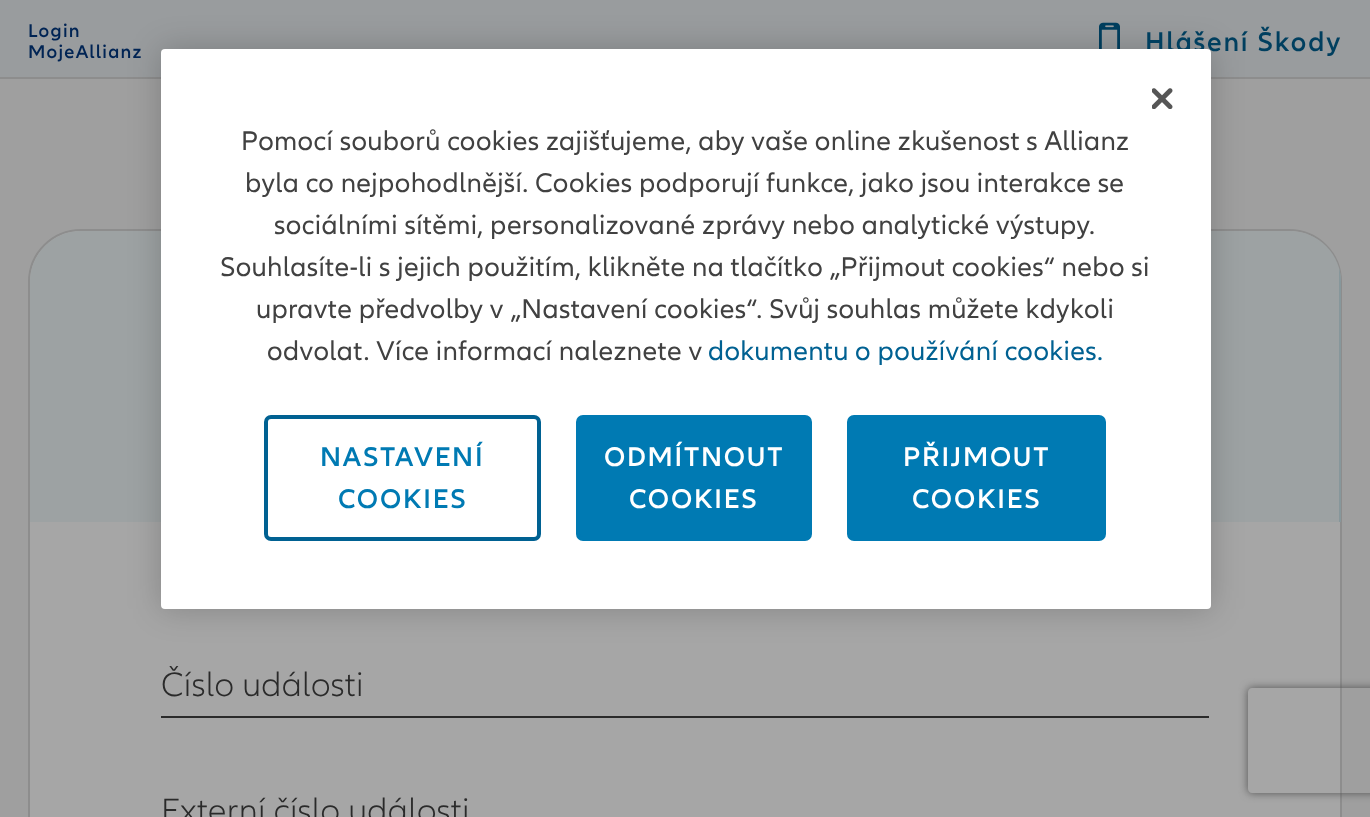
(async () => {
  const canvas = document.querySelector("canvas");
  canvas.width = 1370;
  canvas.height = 817;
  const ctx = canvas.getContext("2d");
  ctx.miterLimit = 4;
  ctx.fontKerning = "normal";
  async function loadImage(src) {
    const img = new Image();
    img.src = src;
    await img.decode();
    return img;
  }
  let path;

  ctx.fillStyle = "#9f9f9f";
  ctx.fillRect(0, 0, 1370, 817);
  ctx.fillStyle = "#999c9e";
  ctx.fillRect(0, 0, 1370, 77);
  ctx.fillStyle = "#8d8d8d";
  ctx.fillRect(0, 77, 1370, 2);
  ctx.drawImage(await loadImage("img/1.png"), 1099, 22, 21, 27);
  ctx.fillStyle = "#a6a6a6";
  ctx.beginPath();
  ctx.roundRect(29, 230, 1312, 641, 52);
  ctx.fill();
  ctx.strokeStyle = "#8d8d8d";
  ctx.lineWidth = 2;
  ctx.stroke();
  ctx.fillStyle = "#9da2a3";
  ctx.beginPath();
  ctx.roundRect(30, 231, 1311, 291, [51, 51, 0, 0]);
  ctx.fill();
  ctx.save();
  ctx.beginPath();
  ctx.roundRect(30, 231, 1311, 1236, 51);
  ctx.clip();
  ctx.fillStyle = "#87979b";
  ctx.fillRect(1339, 268, 2, 254);
  ctx.restore();
  ctx.fillStyle = "#2a2a2a";
  ctx.fillRect(161, 716, 1048, 2);
  ctx.fillStyle = "rgba(0, 0, 0, 0.2)";
  ctx.filter = "blur(16px)";
  ctx.beginPath();
  ctx.roundRect(161, 49, 1050, 560, 4);
  ctx.fill();
  ctx.filter = "none";
  ctx.save();
  path = new Path2D("M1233 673H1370V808H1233ZM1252 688H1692C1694 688 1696 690 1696 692V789C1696 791 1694 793 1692 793H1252C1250 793 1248 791 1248 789V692C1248 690 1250 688 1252 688Z");
  ctx.clip(path, "evenodd");
  ctx.fillStyle = "#535353";
  ctx.filter = "blur(4.5px)";
  ctx.beginPath();
  ctx.roundRect(1248, 688, 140, 105, 4);
  ctx.fill();
  ctx.filter = "none";
  ctx.restore();
  ctx.letterSpacing = "1.25px";
  ctx.font = "600 19.25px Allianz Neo";
  ctx.fillStyle = "#002454";
  ctx.fillText("Login", 28, 37);
  ctx.fillText("MojeAllianz", 28, 58);
  ctx.letterSpacing = "1.75px";
  ctx.font = "600 28px Allianz Neo";
  ctx.fillStyle = "#003f5f";
  ctx.fillText("Hlášení Škody", 1145, 51);
  ctx.letterSpacing = "0.35px";
  ctx.font = "300 35px Allianz Neo";
  ctx.fillStyle = "#2a2a2a";
  ctx.fillText("Číslo události", 161, 696);
  ctx.fillText("Externí číslo události", 161, 822);
  ctx.fillStyle = "#ffffff";
  ctx.beginPath();
  ctx.roundRect(161, 49, 1050, 560, 4);
  ctx.fill();
  ctx.drawImage(await loadImage("img/2.png"), 1152, 88, 21, 21);
  ctx.font = "28px Allianz Neo";
  ctx.fillStyle = "#414141";
  for (const [text, x, y] of [
    ["Pomocí souborů cookies zajišťujeme, aby vaše online zkušenost s Allianz", 241, 150],
    ["byla co nejpohodlnější. Cookies podporují funkce, jako jsou interakce se", 245, 192],
    ["sociálními sítěmi, personalizované zprávy nebo analytické výstupy.", 274, 234],
    ["Souhlasíte-li s jejich použitím, klikněte na tlačítko „Přijmout cookies“ nebo si", 220, 276],
    ["upravte předvolby v „Nastavení cookies“. Svůj souhlas můžete kdykoli", 256, 318],
    ["odvolat. Více informací naleznete v", 267, 360],
  ]) {
    ctx.fillText(text, x, y);
  }
  ctx.fillStyle = "#006192";
  ctx.fillText("dokumentu o používání cookies.", 708, 360);
  ctx.beginPath();
  ctx.roundRect(266, 417, 273, 122, 5);
  ctx.strokeStyle = "#006192";
  ctx.lineWidth = 4;
  ctx.stroke();
  ctx.letterSpacing = "1.75px";
  ctx.font = "600 28px Allianz Neo";
  ctx.fillStyle = "#007ab3";
  ctx.fillText("NASTAVENÍ", 320, 466);
  ctx.fillText("COOKIES", 338, 508);
  ctx.beginPath();
  ctx.roundRect(578, 417, 232, 122, 5);
  ctx.fill();
  ctx.strokeStyle = "#007ab3";
  ctx.stroke();
  ctx.fillStyle = "#ffffff";
  ctx.fillText("ODMÍTNOUT", 604, 466);
  ctx.fillText("COOKIES", 629, 508);
  ctx.fillStyle = "#007ab3";
  ctx.beginPath();
  ctx.roundRect(849, 417, 255, 122, 5);
  ctx.fill();
  ctx.stroke();
  ctx.fillStyle = "#ffffff";
  ctx.fillText("PŘIJMOUT", 903, 466);
  ctx.fillText("COOKIES", 912, 508);
})();
